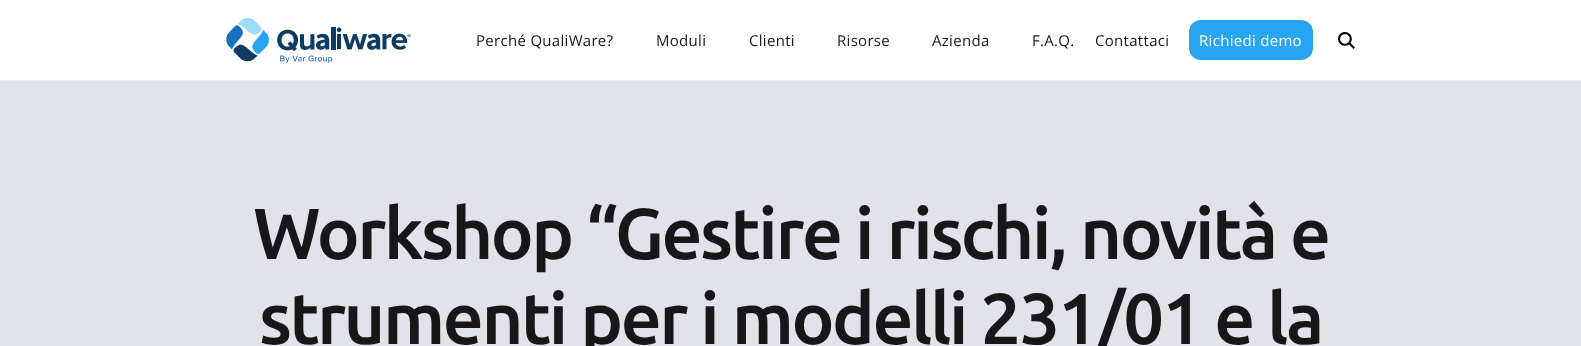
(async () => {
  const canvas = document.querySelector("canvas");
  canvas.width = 1581;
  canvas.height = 346;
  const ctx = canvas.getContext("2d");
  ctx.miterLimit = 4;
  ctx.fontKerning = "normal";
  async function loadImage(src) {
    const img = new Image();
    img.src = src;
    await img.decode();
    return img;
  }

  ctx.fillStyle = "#e1e2ea";
  ctx.fillRect(0, 0, 1581, 346);
  ctx.fillStyle = "#ffffff";
  ctx.fillRect(0, 0, 1581, 80);
  ctx.fillStyle = "#e9ecef";
  ctx.fillRect(0, 80, 1581, 1);
  ctx.drawImage(await loadImage("img/1.png"), 226, 18, 185, 45);
  ctx.fillStyle = "#27a5f2";
  ctx.beginPath();
  ctx.roundRect(1189, 20, 124, 40, 12);
  ctx.fill();
  ctx.drawImage(await loadImage("img/2.png"), 1338, 32, 17, 17);
  ctx.letterSpacing = "0.3px";
  ctx.font = "15px Open Sans";
  ctx.fillStyle = "#19161a";
  for (const [text, x, y] of [
    ["Perché QualiWare?", 476, 46],
    ["Moduli", 656, 46],
    ["Clienti", 749, 46],
    ["Risorse", 837, 46],
    ["Azienda", 932, 46],
    ["F.A.Q.", 1032, 46],
    ["Contattaci", 1095, 46],
  ]) {
    ctx.fillText(text, x, y);
  }
  ctx.fillStyle = "#ffffff";
  ctx.fillText("Richiedi demo", 1199, 46);
  ctx.letterSpacing = "-2.5px";
  ctx.font = "500 72px Ubuntu";
  ctx.fillStyle = "#19161a";
  ctx.fillText("Workshop “Gestire i rischi, novità e", 253, 259);
  ctx.fillText("strumenti per i modelli 231/01 e la", 259, 344);
})();
